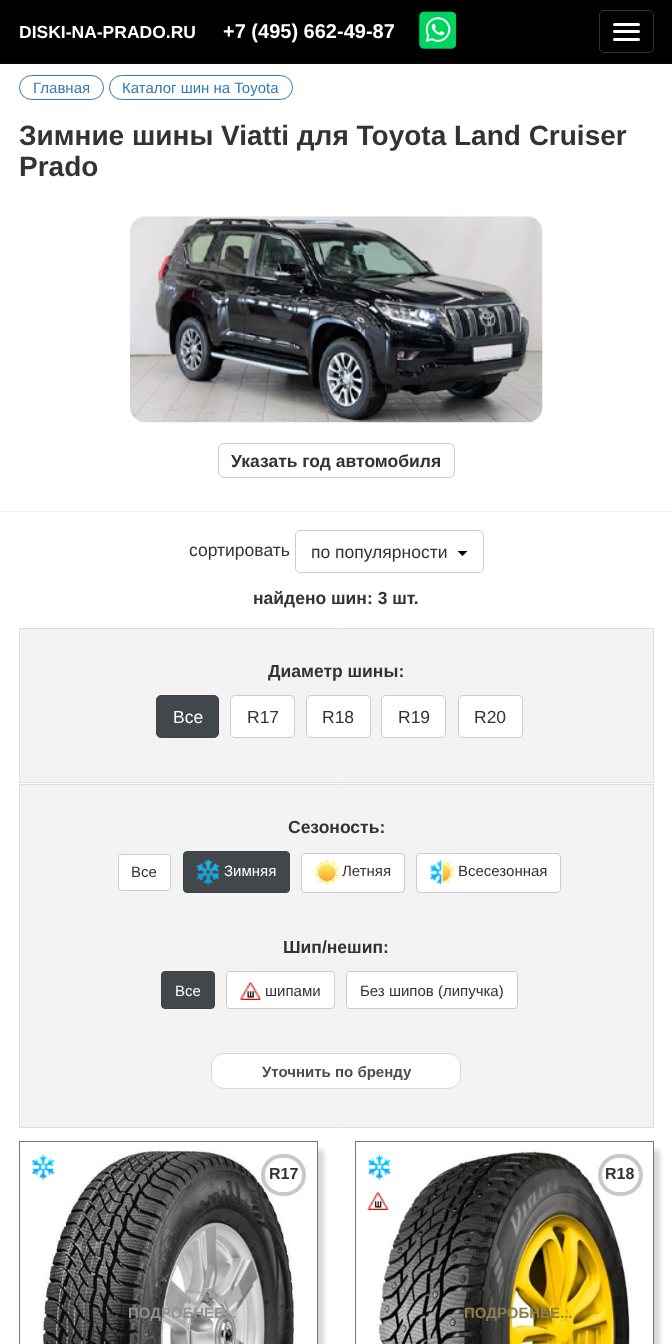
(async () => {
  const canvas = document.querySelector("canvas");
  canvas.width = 672;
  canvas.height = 1344;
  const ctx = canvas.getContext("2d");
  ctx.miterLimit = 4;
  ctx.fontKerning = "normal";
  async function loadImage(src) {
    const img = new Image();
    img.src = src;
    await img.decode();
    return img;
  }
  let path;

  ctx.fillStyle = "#ffffff";
  ctx.fillRect(0, 0, 672, 1344);
  ctx.fillStyle = "#000000";
  ctx.fillRect(0, 0, 672, 63);
  ctx.fillStyle = "#080808";
  ctx.fillRect(0, 63, 672, 1);
  ctx.beginPath();
  ctx.roundRect(599.5, 10.5, 54, 42, 4.5);
  ctx.strokeStyle = "#333333";
  ctx.stroke();
  ctx.fillStyle = "#ffffff";
  ctx.beginPath();
  ctx.roundRect(613, 23, 27, 3, 1.5);
  ctx.fill();
  ctx.beginPath();
  ctx.roundRect(613, 30, 27, 3, 1.5);
  ctx.fill();
  ctx.beginPath();
  ctx.roundRect(613, 38, 27, 3, 1.5);
  ctx.fill();
  ctx.drawImage(await loadImage("img/1.png"), 418, 11, 39, 38);
  ctx.beginPath();
  ctx.roundRect(19.5, 75.5, 84, 24, 12);
  ctx.strokeStyle = "#337ab7";
  ctx.stroke();
  ctx.beginPath();
  ctx.roundRect(109.5, 75.5, 183, 24, 12);
  ctx.stroke();
  ctx.drawImage(await loadImage("img/2.png"), 130, 216, 413, 207);
  ctx.beginPath();
  ctx.roundRect(218.5, 443.5, 236, 34, 5.5);
  ctx.strokeStyle = "#cccccc";
  ctx.stroke();
  ctx.fillStyle = "#efefef";
  ctx.fillRect(0, 511, 672, 1);
  ctx.beginPath();
  ctx.roundRect(295.5, 530.5, 188, 42, 4.5);
  ctx.stroke();
  ctx.fillStyle = "#000000";
  path = new Path2D("M457.5 551H467.5L462.5 556Z");
  ctx.fill(path);
  ctx.fillStyle = "#f3f3f3";
  ctx.beginPath();
  ctx.rect(19.5, 628.5, 634, 154);
  ctx.fill();
  ctx.strokeStyle = "#dfdfdf";
  ctx.stroke();
  ctx.fillStyle = "#41474a";
  ctx.beginPath();
  ctx.roundRect(156.5, 695.5, 62, 42, 4.5);
  ctx.fill();
  ctx.strokeStyle = "#414146";
  ctx.stroke();
  ctx.fillStyle = "#ffffff";
  ctx.beginPath();
  ctx.roundRect(230.5, 695.5, 64, 42, 4.5);
  ctx.fill();
  ctx.strokeStyle = "#cccccc";
  ctx.stroke();
  ctx.beginPath();
  ctx.roundRect(306.5, 695.5, 64, 42, 4.5);
  ctx.fill();
  ctx.stroke();
  ctx.beginPath();
  ctx.roundRect(381.5, 695.5, 64, 42, 4.5);
  ctx.fill();
  ctx.stroke();
  ctx.beginPath();
  ctx.roundRect(458.5, 695.5, 64, 42, 4.5);
  ctx.fill();
  ctx.stroke();
  ctx.fillStyle = "#f3f3f3";
  ctx.beginPath();
  ctx.rect(19.5, 784.5, 634, 343);
  ctx.fill();
  ctx.strokeStyle = "#dfdfdf";
  ctx.stroke();
  ctx.fillStyle = "#ffffff";
  ctx.beginPath();
  ctx.roundRect(118.5, 854.5, 52, 36, 3.5);
  ctx.fill();
  ctx.strokeStyle = "#cccccc";
  ctx.stroke();
  ctx.fillStyle = "#41474a";
  ctx.beginPath();
  ctx.roundRect(183.5, 851.5, 106, 41, 3.5);
  ctx.fill();
  ctx.strokeStyle = "#414146";
  ctx.stroke();
  ctx.drawImage(await loadImage("img/3.png"), 196, 858, 23, 27);
  ctx.fillStyle = "#ffffff";
  ctx.beginPath();
  ctx.roundRect(301.5, 853.5, 103, 39, 3.5);
  ctx.fill();
  ctx.strokeStyle = "#cccccc";
  ctx.stroke();
  ctx.drawImage(await loadImage("img/4.png"), 315, 860, 24, 25);
  ctx.beginPath();
  ctx.roundRect(416.5, 853.5, 144, 39, 3.5);
  ctx.fill();
  ctx.stroke();
  ctx.drawImage(await loadImage("img/5.png"), 430, 860, 24, 25);
  ctx.fillStyle = "#41474a";
  ctx.beginPath();
  ctx.roundRect(161.5, 971.5, 53, 37, 3.5);
  ctx.fill();
  ctx.strokeStyle = "#414146";
  ctx.stroke();
  ctx.fillStyle = "#ffffff";
  ctx.beginPath();
  ctx.roundRect(226.5, 971.5, 108, 37, 3.5);
  ctx.fill();
  ctx.strokeStyle = "#cccccc";
  ctx.stroke();
  ctx.drawImage(await loadImage("img/6.png"), 240, 982, 22, 18);
  ctx.beginPath();
  ctx.roundRect(346.5, 971.5, 171, 37, 3.5);
  ctx.fill();
  ctx.stroke();
  ctx.beginPath();
  ctx.roundRect(211.5, 1053.5, 249, 35, 12.5);
  ctx.fill();
  ctx.strokeStyle = "#d8d8d8";
  ctx.stroke();
  ctx.fillStyle = "#d5d7d8";
  ctx.filter = "blur(2.5px)";
  ctx.beginPath();
  ctx.rect(25, 1150, 299, 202);
  ctx.fill();
  ctx.filter = "none";
  ctx.fillStyle = "#ffffff";
  ctx.fillRect(21, 1146, 296, 198);
  ctx.strokeStyle = "#72787f";
  ctx.strokeRect(19.5, 1141.5, 298, 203);
  ctx.drawImage(await loadImage("img/8.png"), 40, 1149, 256, 195);
  ctx.drawImage(await loadImage("img/7.png"), 31, 1154, 23, 26);
  ctx.beginPath();
  ctx.roundRect(263, 1156, 41, 38, 19);
  ctx.fill();
  ctx.strokeStyle = "#c5c9ce";
  ctx.lineWidth = 4;
  ctx.stroke();
  ctx.fillStyle = "#d5d7d8";
  ctx.filter = "blur(2.5px)";
  ctx.beginPath();
  ctx.rect(361, 1150, 299, 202);
  ctx.fill();
  ctx.filter = "none";
  ctx.fillStyle = "#ffffff";
  ctx.fillRect(357, 1146, 296, 198);
  ctx.strokeStyle = "#72787f";
  ctx.lineWidth = 1;
  ctx.strokeRect(355.5, 1141.5, 298, 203);
  ctx.drawImage(await loadImage("img/11.png"), 376, 1149, 254, 195);
  ctx.drawImage(await loadImage("img/9.png"), 367, 1153, 24, 27);
  ctx.beginPath();
  ctx.roundRect(600, 1156, 41, 38, 19);
  ctx.strokeStyle = "#c5c9ce";
  ctx.lineWidth = 4;
  ctx.stroke();
  ctx.drawImage(await loadImage("img/10.png"), 367, 1192, 22, 18);
  ctx.font = "bold 17.5px Liberation Sans";
  ctx.fillText("DISKI-NA-PRADO.RU", 19, 38);
  ctx.font = "bold 20px Liberation Sans";
  ctx.fillText("+7 (495) 662-49-87", 223, 38);
  ctx.font = "15px Liberation Sans";
  ctx.fillStyle = "#337ab7";
  ctx.fillText("Главная", 33, 93);
  ctx.fillText("Каталог шин на Toyota", 122, 93);
  ctx.font = "bold 28px Liberation Sans";
  ctx.fillStyle = "#333333";
  ctx.fillText("Зимние шины Viatti для Toyota Land Cruiser", 19, 145);
  ctx.fillText("Prado", 19, 176);
  ctx.font = "bold 17.5px Liberation Sans";
  ctx.fillText("Указать год автомобиля", 231, 467);
  ctx.font = "17.5px Liberation Sans";
  ctx.fillText("сортировать", 189, 556);
  ctx.fillText("по популярности", 311, 558);
  ctx.font = "bold 17.5px Liberation Sans";
  ctx.fillText("найдено шин: 3 шт.", 253, 604);
  ctx.fillText("Диаметр шины:", 268, 677);
  ctx.font = "17.5px Liberation Sans";
  ctx.fillStyle = "#ffffff";
  ctx.fillText("Все", 173, 723);
  ctx.fillStyle = "#333333";
  for (const [text, x, y] of [
    ["R17", 247, 723],
    ["R18", 322, 723],
    ["R19", 398, 723],
    ["R20", 474, 723],
  ]) {
    ctx.fillText(text, x, y);
  }
  ctx.font = "bold 17.5px Liberation Sans";
  ctx.fillText("Сезоность:", 288, 833);
  ctx.font = "15px Liberation Sans";
  ctx.fillText("Все", 131, 877);
  ctx.fillStyle = "#ffffff";
  ctx.fillText("Зимняя", 224, 876);
  ctx.fillStyle = "#333333";
  ctx.fillText("Летняя", 342, 876);
  ctx.fillText("Всесезонная", 458, 876);
  ctx.font = "bold 17.5px Liberation Sans";
  ctx.fillText("Шип/нешип:", 283, 953);
  ctx.font = "15px Liberation Sans";
  ctx.fillStyle = "#ffffff";
  ctx.fillText("Все", 175, 996);
  ctx.fillStyle = "#333333";
  ctx.fillText("шипами", 265, 996);
  ctx.fillText("Без шипов (липучка)", 360, 996);
  ctx.font = "bold 15px Liberation Sans";
  ctx.fillStyle = "#4c4c4c";
  ctx.fillText("Уточнить по бренду", 262, 1077);
  ctx.font = "bold 16px Liberation Sans";
  ctx.fillStyle = "#333333";
  ctx.fillText("R17", 269, 1179);
  ctx.font = "bold 15px Liberation Sans";
  ctx.fillStyle = "#919191";
  ctx.fillText("ПОДРОБНЕЕ...", 128, 1318);
  ctx.font = "bold 16px Liberation Sans";
  ctx.fillStyle = "#333333";
  ctx.fillText("R18", 605, 1179);
  ctx.font = "bold 15px Liberation Sans";
  ctx.fillStyle = "#8c7f50";
  ctx.fillText("ПОДРОБНЕЕ...", 464, 1318);
})();
